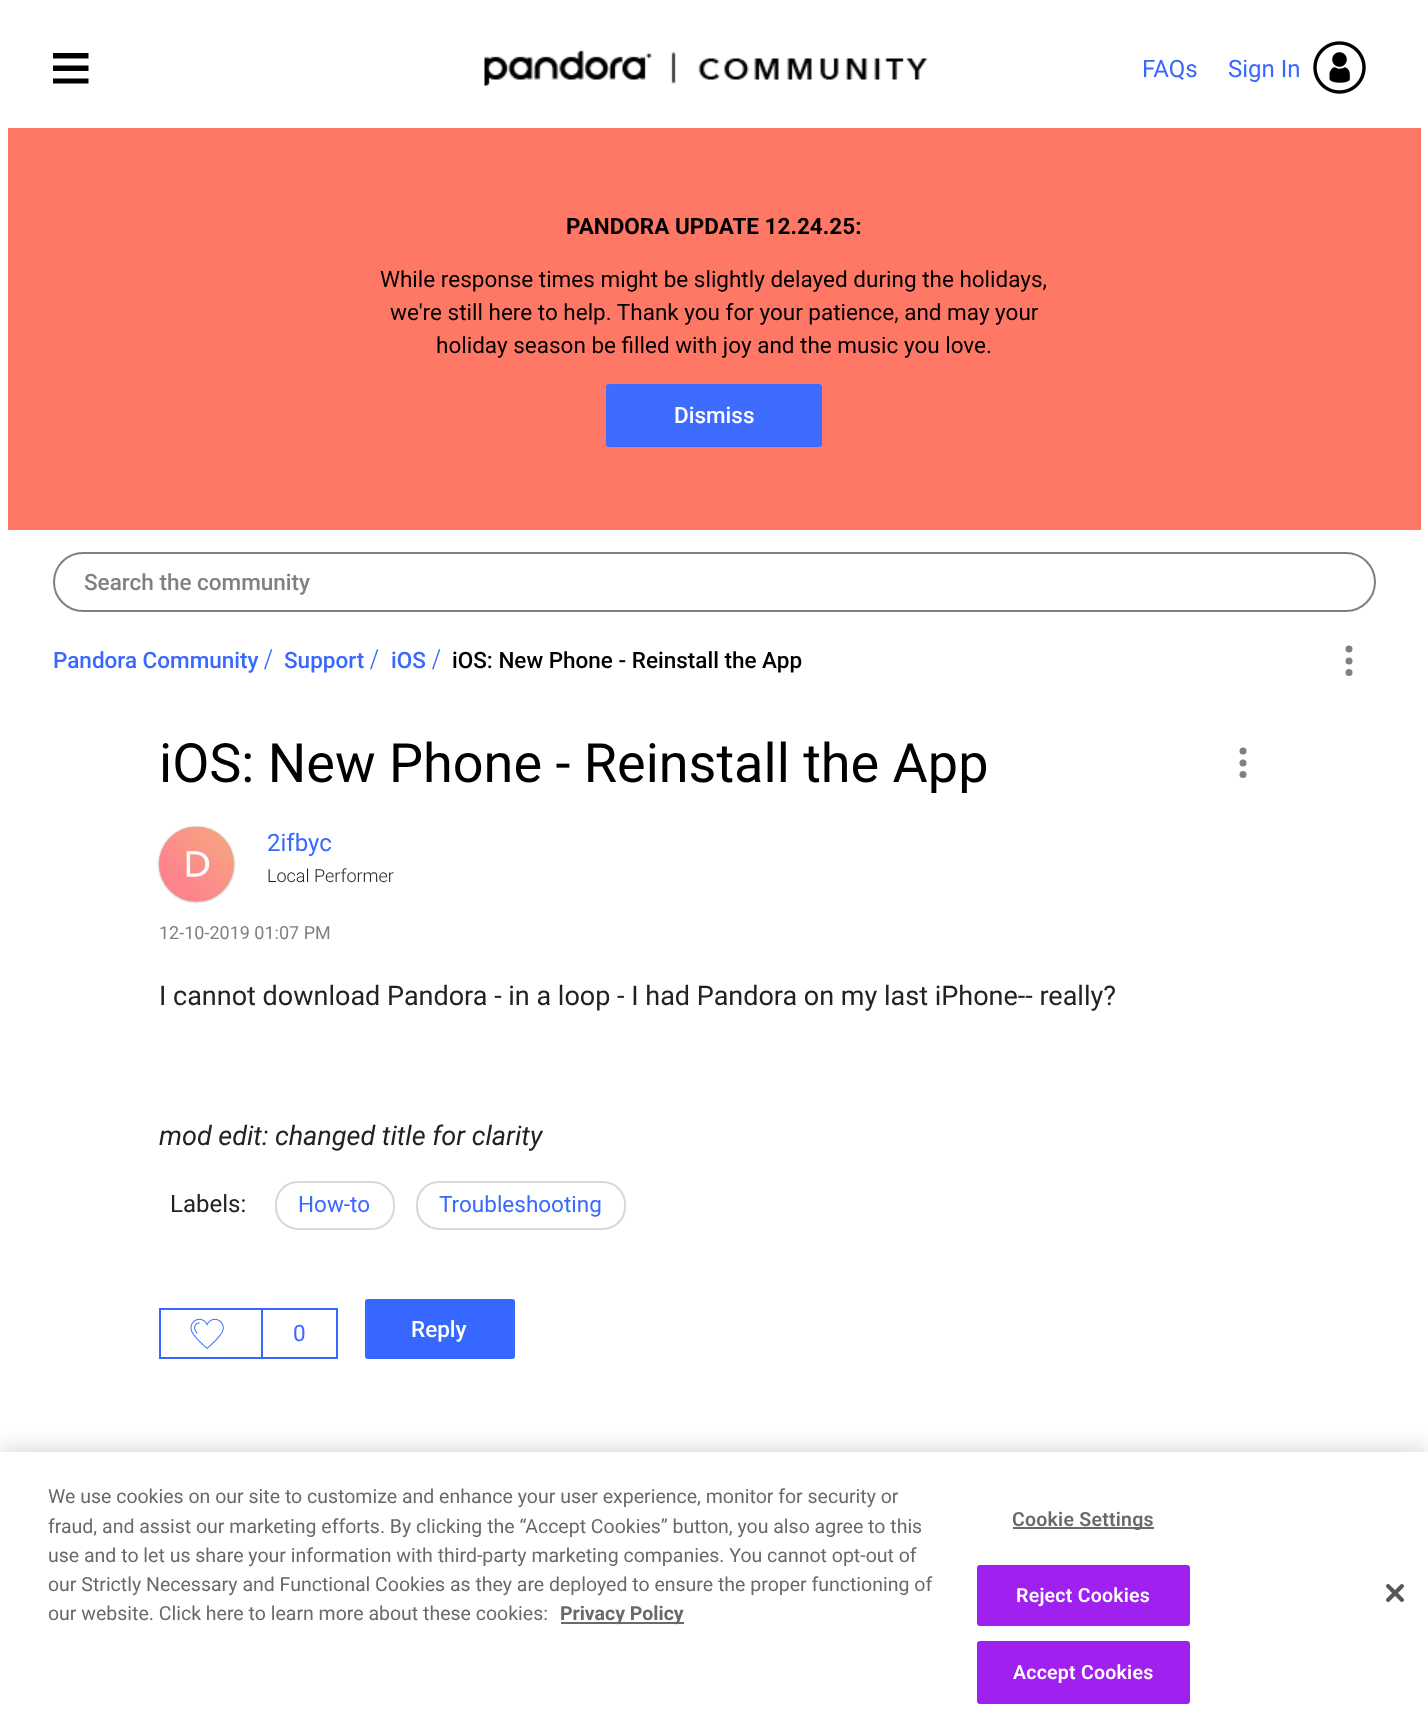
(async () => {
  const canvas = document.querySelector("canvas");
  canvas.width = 1428;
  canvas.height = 1734;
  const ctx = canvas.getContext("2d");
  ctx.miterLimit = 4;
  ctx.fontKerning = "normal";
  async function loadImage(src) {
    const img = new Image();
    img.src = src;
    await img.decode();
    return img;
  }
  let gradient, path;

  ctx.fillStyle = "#ffffff";
  ctx.fillRect(0, 0, 1428, 1734);
  ctx.save();
  ctx.beginPath();
  ctx.rect(53, 50, 36, 36);
  ctx.clip();
  ctx.fillStyle = "#000000";
  path = new Path2D("M52.5 53H88.5V58.5H52.5ZM52.5 65.5H88.5V71H52.5ZM52.5 78.5H88.5V83.5H52.5Z");
  ctx.fill(path, "evenodd");
  ctx.restore();
  ctx.drawImage(await loadImage("img/1.png"), 484, 50, 444, 36);
  ctx.drawImage(await loadImage("img/2.png"), 1313, 41, 53, 53);
  gradient = ctx.createRadialGradient(1421, 620.97, 0, 1421, 620.97, 1413);
  gradient.addColorStop(0, "#ff7765");
  gradient.addColorStop(1, "#ff7865");
  ctx.fillStyle = gradient;
  ctx.beginPath();
  ctx.rect(8, 128, 1413, 402);
  ctx.save();
  ctx.clip();
  ctx.scale(1, 1206 / 1413);
  ctx.fillRect(0, 0, 1428, 2032);
  ctx.restore();
  ctx.fillStyle = "#3e6cff";
  ctx.beginPath();
  ctx.roundRect(607, 385, 214, 61, 2);
  ctx.fill();
  ctx.strokeStyle = "#3e6cff";
  ctx.lineWidth = 2;
  ctx.stroke();
  ctx.beginPath();
  ctx.roundRect(54, 553, 1321, 58, 29);
  ctx.strokeStyle = "#808080";
  ctx.stroke();
  ctx.fillStyle = "#808080";
  ctx.beginPath();
  ctx.arc(1349, 649, 3.5, 0, Math.PI * 2);
  ctx.fill();
  ctx.beginPath();
  ctx.arc(1349, 661, 3.5, 0, Math.PI * 2);
  ctx.fill();
  ctx.beginPath();
  ctx.arc(1349, 672.5, 3.5, 0, Math.PI * 2);
  ctx.fill();
  ctx.fillStyle = "#999999";
  ctx.filter = "blur(1px)";
  ctx.beginPath();
  ctx.roundRect(159, 827, 75, 75, 37.5);
  ctx.fill();
  ctx.filter = "none";
  ctx.drawImage(await loadImage("img/3.png"), 159, 826, 75, 76);
  ctx.fillStyle = "#808080";
  ctx.beginPath();
  ctx.arc(1243, 751, 3.5, 0, Math.PI * 2);
  ctx.fill();
  ctx.beginPath();
  ctx.arc(1243, 763, 3.5, 0, Math.PI * 2);
  ctx.fill();
  ctx.beginPath();
  ctx.arc(1243, 774.5, 3.5, 0, Math.PI * 2);
  ctx.fill();
  ctx.beginPath();
  ctx.roundRect(276, 1182, 118, 47, 22);
  ctx.strokeStyle = "#d8d8d8";
  ctx.stroke();
  ctx.beginPath();
  ctx.roundRect(417, 1182, 208, 47, 22);
  ctx.stroke();
  ctx.strokeStyle = "#3668ff";
  ctx.strokeRect(160, 1309, 177, 49);
  ctx.drawImage(await loadImage("img/4.png"), 190, 1318, 34, 31);
  ctx.fillStyle = "#3668ff";
  ctx.fillRect(261, 1310, 2, 48);
  ctx.beginPath();
  ctx.roundRect(365, 1299, 150, 60, 3);
  ctx.fill();
  ctx.fillStyle = "rgba(0, 0, 0, 0.2)";
  ctx.filter = "blur(13.5px)";
  ctx.beginPath();
  ctx.rect(0, 1452, 1428, 282);
  ctx.fill();
  ctx.filter = "none";
  for (const [x, y, w, h, color] of [
    [0, 1452, 1428, 282, "#ffffff"],
    [561, 1622, 123, 2, "#696969"],
    [1013, 1527, 141, 2, "#696969"],
  ]) {
    ctx.fillStyle = color;
    ctx.fillRect(x, y, w, h);
  }
  ctx.fillStyle = "#a020f0";
  ctx.beginPath();
  ctx.roundRect(978, 1566, 211, 59, 2);
  ctx.fill();
  ctx.strokeStyle = "#a020f0";
  ctx.stroke();
  ctx.beginPath();
  ctx.roundRect(978, 1642, 211, 61, 2);
  ctx.fill();
  ctx.stroke();
  ctx.drawImage(await loadImage("img/5.png"), 1386, 1584, 18, 18);
  ctx.font = "24px Roboto";
  ctx.fillStyle = "#3868ff";
  ctx.fillText("FAQs", 1142, 77);
  ctx.fillText("Sign In", 1228, 77);
  ctx.font = "bold 22.5px Roboto";
  ctx.fillStyle = "#000000";
  ctx.fillText("PANDORA UPDATE 12.24.25:", 566, 234);
  ctx.font = "22.5px Roboto";
  for (const [text, x, y] of [
    ["While response times might be slightly delayed during the holidays,", 380, 287],
    ["we're still here to help. Thank you for your patience, and may your", 390, 320],
    ["holiday season be filled with joy and the music you love.", 436, 353],
  ]) {
    ctx.fillText(text, x, y);
  }
  ctx.font = "500 22.5px Roboto";
  ctx.fillStyle = "#ffffff";
  ctx.fillText("Dismiss", 674, 423);
  ctx.fillStyle = "#808080";
  ctx.fillText("Search the community", 84, 590);
  ctx.fillStyle = "#3868ff";
  ctx.fillText("Pandora Community", 53, 668);
  ctx.font = "30px Liberation Serif";
  ctx.fillText("/", 264, 669);
  ctx.font = "500 22.5px Roboto";
  ctx.fillText("Support", 284, 668);
  ctx.font = "30px Liberation Serif";
  ctx.fillText("/", 370, 669);
  ctx.font = "500 22.5px Roboto";
  ctx.fillText("iOS", 391, 668);
  ctx.font = "30px Liberation Serif";
  ctx.fillText("/", 432, 669);
  ctx.font = "500 22.5px Roboto";
  ctx.fillStyle = "#000000";
  ctx.fillText("iOS: New Phone - Reinstall the App", 452, 668);
  ctx.font = "54px Roboto";
  ctx.fillText("iOS: New Phone - Reinstall the App", 159, 782);
  ctx.font = "24px Roboto";
  ctx.fillStyle = "#3868ff";
  ctx.fillText("2ifbyc", 267, 851);
  ctx.font = "300 18px Roboto";
  ctx.fillStyle = "#222222";
  ctx.fillText("Local Performer", 267, 882);
  ctx.font = "18px Roboto";
  ctx.fillStyle = "#808080";
  ctx.fillText("12-10-2019 01:07 PM", 159, 939);
  ctx.font = "27px Roboto";
  ctx.fillStyle = "#222222";
  ctx.fillText("I cannot download Pandora - in a loop - I had Pandora on my last iPhone-- really?", 159, 1005);
  ctx.font = "italic 27px Roboto";
  ctx.fillText("mod edit: changed title for clarity", 159, 1145);
  ctx.font = "24px Roboto";
  ctx.fillText("Labels:", 170, 1212);
  ctx.font = "22.5px Roboto";
  ctx.fillStyle = "#3868ff";
  for (const [text, x, y] of [
    ["How-to", 298, 1212],
    ["Troubleshooting", 439, 1212],
    ["0", 293, 1341],
  ]) {
    ctx.fillText(text, x, y);
  }
  ctx.font = "500 22.5px Roboto";
  ctx.fillStyle = "#ffffff";
  ctx.fillText("Reply", 411, 1337);
  ctx.font = "19.5px Roboto";
  ctx.fillStyle = "#696969";
  for (const [text, x, y] of [
    ["We use cookies on our site to customize and enhance your user experience, monitor for security or", 48, 1503],
    ["fraud, and assist our marketing efforts. By clicking the “Accept Cookies” button, you also agree to this", 48, 1533],
    ["use and to let us share your information with third-party marketing companies. You cannot opt-out of", 48, 1562],
    ["our Strictly Necessary and Functional Cookies as they are deployed to ensure the proper functioning of", 48, 1591],
    ["our website. Click here to learn more about these cookies:", 48, 1620],
  ]) {
    ctx.fillText(text, x, y);
  }
  ctx.font = "bold 19.5px Roboto";
  ctx.fillText("Privacy Policy", 560, 1620);
  ctx.letterSpacing = "0.25px";
  ctx.font = "600 19.5px Roboto";
  ctx.fillText("Cookie Settings", 1012, 1526);
  ctx.fillStyle = "#ffffff";
  ctx.fillText("Reject Cookies", 1016, 1602);
  ctx.fillText("Accept Cookies", 1013, 1679);
})();
